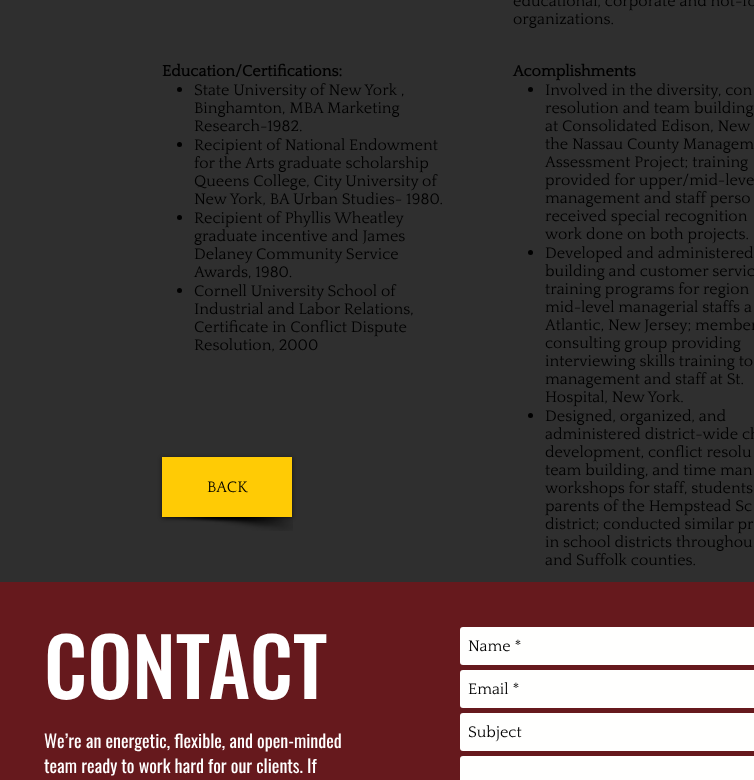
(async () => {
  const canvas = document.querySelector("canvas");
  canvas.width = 754;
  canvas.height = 780;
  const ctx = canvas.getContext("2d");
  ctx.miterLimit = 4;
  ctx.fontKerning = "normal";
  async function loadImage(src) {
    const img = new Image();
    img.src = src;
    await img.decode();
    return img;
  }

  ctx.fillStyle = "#2f2f2f";
  ctx.fillRect(0, 0, 754, 780);
  ctx.fillStyle = "#000000";
  ctx.beginPath();
  ctx.arc(179.5, 89.5, 2.5, 0, Math.PI * 2);
  ctx.fill();
  ctx.beginPath();
  ctx.arc(179.5, 144.5, 2.5, 0, Math.PI * 2);
  ctx.fill();
  ctx.beginPath();
  ctx.arc(179.5, 217.5, 2.5, 0, Math.PI * 2);
  ctx.fill();
  ctx.beginPath();
  ctx.arc(179.5, 290.5, 2.5, 0, Math.PI * 2);
  ctx.fill();
  ctx.beginPath();
  ctx.arc(530.5, 89.5, 2.5, 0, Math.PI * 2);
  ctx.fill();
  ctx.beginPath();
  ctx.arc(530.5, 252.5, 2.5, 0, Math.PI * 2);
  ctx.fill();
  ctx.beginPath();
  ctx.arc(530.5, 415.5, 2.5, 0, Math.PI * 2);
  ctx.fill();
  ctx.drawImage(await loadImage("img/1.png"), 166, 517, 127, 14);
  ctx.fillStyle = "rgba(0, 0, 0, 0.6)";
  ctx.filter = "blur(2px)";
  ctx.beginPath();
  ctx.rect(162, 458, 130, 60);
  ctx.fill();
  ctx.filter = "none";
  ctx.fillStyle = "#ffcb05";
  ctx.fillRect(162, 457, 130, 60);
  ctx.fillStyle = "#66191d";
  ctx.fillRect(0, 582, 754, 198);
  ctx.fillStyle = "#fffffe";
  ctx.beginPath();
  ctx.roundRect(460, 627, 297, 38, 3);
  ctx.fill();
  ctx.beginPath();
  ctx.roundRect(460, 670, 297, 38, 3);
  ctx.fill();
  ctx.beginPath();
  ctx.roundRect(460, 713, 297, 38, 3);
  ctx.fill();
  ctx.beginPath();
  ctx.roundRect(460, 756, 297, 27, 3);
  ctx.fill();
  ctx.font = "16px Quattrocento";
  ctx.fillStyle = "#000000";
  ctx.fillText("educational, corporate and not-fo", 513, 6);
  ctx.fillText("organizations.", 513, 24);
  ctx.font = "bold 16px Quattrocento";
  ctx.fillText("Education/Certifications:", 162, 76);
  ctx.font = "16px Quattrocento";
  for (const [text, x, y] of [
    ["State University of New York ,", 194, 95],
    ["Binghamton, MBA Marketing", 194, 113],
    ["Research-1982.", 194, 131],
    ["Recipient of National Endowment", 194, 150],
    ["for the Arts graduate scholarship", 194, 168],
    ["Queens College, City University of", 194, 186],
    ["New York, BA Urban Studies- 1980.", 194, 204],
    ["Recipient of Phyllis Wheatley", 194, 223],
    ["graduate incentive and James", 194, 241],
    ["Delaney Community Service", 194, 259],
    ["Awards, 1980.", 194, 277],
    ["Cornell University School of", 194, 296],
    ["Industrial and Labor Relations,", 194, 314],
    ["Certificate in Conflict Dispute", 194, 332],
    ["Resolution, 2000", 194, 350],
  ]) {
    ctx.fillText(text, x, y);
  }
  ctx.font = "bold 16px Quattrocento";
  ctx.fillText("Acomplishments", 513, 76);
  ctx.font = "16px Quattrocento";
  for (const [text, x, y] of [
    ["Involved in the diversity, con", 545, 95],
    ["resolution and team building", 545, 113],
    ["at Consolidated Edison, New", 545, 131],
    ["the Nassau County Managem", 545, 149],
    ["Assessment Project; training", 545, 167],
    ["provided for upper/mid-leve", 545, 185],
    ["management and staff perso", 545, 203],
    ["received special recognition", 545, 221],
    ["work done on both projects.", 545, 239],
    ["Developed and administered", 545, 258],
    ["building and customer servic", 545, 276],
    ["training programs for region", 545, 294],
    ["mid-level managerial staffs a", 545, 312],
    ["Atlantic, New Jersey; member", 545, 330],
    ["consulting group providing", 545, 348],
    ["interviewing skills training to", 545, 366],
    ["management and staff at St.", 545, 384],
    ["Hospital, New York.", 545, 402],
    ["Designed, organized, and", 545, 421],
    ["administered district-wide ch", 545, 439],
    ["development, conflict resolu", 545, 457],
    ["team building, and time man", 545, 475],
    ["workshops for staff, students", 545, 493],
    ["parents of the Hempstead Sc", 545, 511],
    ["district; conducted similar pr", 545, 529],
    ["in school districts throughou", 545, 547],
    ["and Suffolk counties.", 545, 565],
    ["BACK", 207, 492],
  ]) {
    ctx.fillText(text, x, y);
  }
  ctx.font = "500 80px Oswald";
  ctx.fillStyle = "#ffffff";
  ctx.fillText("CONTACT", 44, 699);
  ctx.font = "16px Quattrocento";
  ctx.fillStyle = "#000000";
  for (const [text, x, y] of [
    ["Name *", 468, 651],
    ["Email *", 468, 694],
    ["Subject", 468, 737],
  ]) {
    ctx.fillText(text, x, y);
  }
  ctx.font = "18px Oswald";
  ctx.fillStyle = "#ffffff";
  ctx.fillText("We’re an energetic, flexible, and open-minded", 44, 748);
  ctx.fillText("team ready to work hard for our clients. If", 44, 773);
})();
